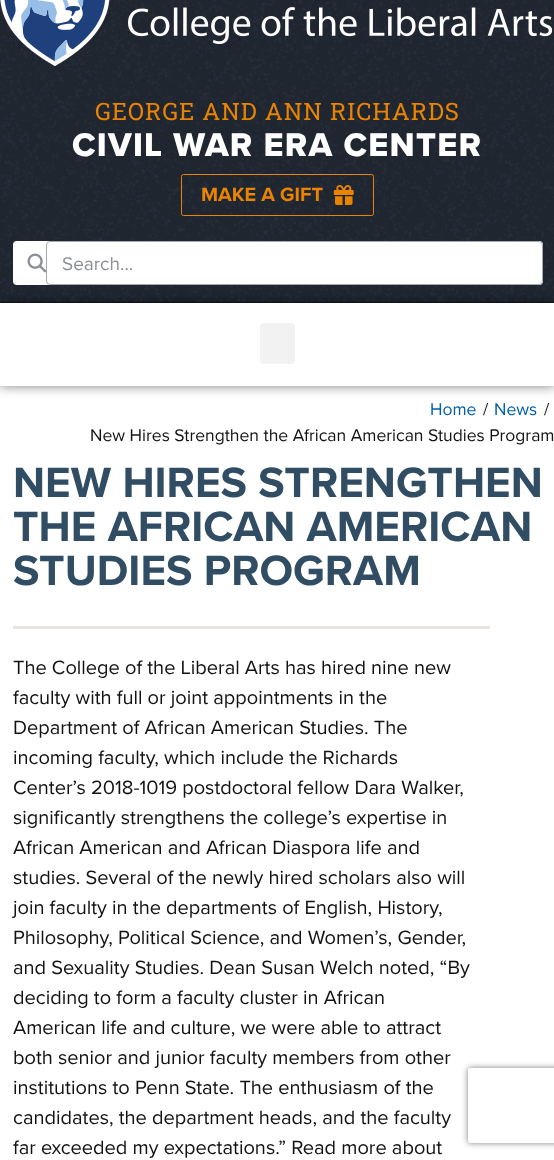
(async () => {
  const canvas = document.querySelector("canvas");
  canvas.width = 554;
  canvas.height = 1160;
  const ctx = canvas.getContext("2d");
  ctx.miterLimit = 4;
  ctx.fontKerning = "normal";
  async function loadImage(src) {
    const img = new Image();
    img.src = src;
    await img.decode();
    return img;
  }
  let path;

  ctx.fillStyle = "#ffffff";
  ctx.fillRect(0, 0, 554, 1160);
  ctx.fillStyle = "#000321";
  ctx.fillRect(0, 0, 554, 303);
  ctx.drawImage(await loadImage("img/1.png"), 0, 0, 554, 303);
  ctx.drawImage(await loadImage("img/2.png"), 0, 0, 553, 66);
  ctx.beginPath();
  ctx.roundRect(181.5, 174.5, 192, 41, 2);
  ctx.strokeStyle = "#e98300";
  ctx.stroke();
  ctx.drawImage(await loadImage("img/3.png"), 333, 185, 21, 20);
  ctx.fillStyle = "#ffffff";
  ctx.beginPath();
  ctx.roundRect(13, 241, 530, 44, 4);
  ctx.fill();
  ctx.beginPath();
  ctx.roundRect(46.5, 241.5, 496, 43, 3.5);
  ctx.strokeStyle = "#a2aaad";
  ctx.stroke();
  ctx.drawImage(await loadImage("img/4.png"), 27, 253, 20, 20);
  ctx.save();
  path = new Path2D("M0 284H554V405H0ZM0 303H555V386H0Z");
  ctx.clip(path, "evenodd");
  ctx.fillStyle = "rgba(0, 0, 0, 0.5)";
  ctx.filter = "blur(6px)";
  ctx.beginPath();
  ctx.rect(0, 303, 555, 83);
  ctx.fill();
  ctx.filter = "none";
  ctx.restore();
  ctx.fillStyle = "#f2f2f2";
  ctx.beginPath();
  ctx.roundRect(260, 323, 35, 41, 4);
  ctx.fill();
  ctx.fillStyle = "#eae4e0";
  ctx.fillRect(13, 626, 477, 3);
  ctx.save();
  path = new Path2D("M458 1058H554V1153H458ZM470.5 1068H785.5C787 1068 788 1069 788 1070.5V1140.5C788 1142 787 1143 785.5 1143H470.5C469 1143 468 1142 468 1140.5V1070.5C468 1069 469 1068 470.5 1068Z");
  ctx.clip(path, "evenodd");
  ctx.fillStyle = "#808080";
  ctx.filter = "blur(3px)";
  ctx.beginPath();
  ctx.roundRect(468, 1068, 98, 75, 2.5);
  ctx.fill();
  ctx.filter = "none";
  ctx.restore();
  ctx.letterSpacing = "1px";
  ctx.font = "24px Roboto Slab";
  ctx.fillStyle = "#e98300";
  ctx.fillText("GEORGE AND ANN RICHARDS", 95, 120);
  ctx.letterSpacing = "1.25px";
  ctx.font = "800 34px Proxima Nova";
  ctx.fillStyle = "#ffffff";
  ctx.fillText("CIVIL WAR ERA CENTER", 72, 156);
  ctx.letterSpacing = "0px";
  ctx.font = "bold 20px Proxima Nova";
  ctx.fillStyle = "#e98300";
  ctx.fillText("MAKE A GIFT", 201, 201);
  ctx.font = "19px Proxima Nova";
  ctx.fillStyle = "#8c8f93";
  ctx.fillText("Search...", 62, 270);
  ctx.font = "17.5px Proxima Nova";
  ctx.fillStyle = "#005fa9";
  ctx.fillText("Home", 430, 415);
  ctx.fillStyle = "#121212";
  ctx.fillText("/", 483, 415);
  ctx.fillStyle = "#005fa9";
  ctx.fillText("News", 494, 415);
  ctx.fillStyle = "#121212";
  ctx.fillText("/", 544, 415);
  ctx.fillText("New Hires Strengthen the African American Studies Program", 90, 441);
  ctx.font = "bold 44px Proxima Nova";
  ctx.fillStyle = "#314d64";
  for (const [text, x, y] of [
    ["NEW HIRES STRENGTHEN", 13, 497],
    ["THE AFRICAN AMERICAN", 13, 541],
    ["STUDIES PROGRAM", 13, 585],
  ]) {
    ctx.fillText(text, x, y);
  }
  ctx.font = "20px Proxima Nova";
  ctx.fillStyle = "#121212";
  for (const [text, x, y] of [
    ["The College of the Liberal Arts has hired nine new", 13, 674],
    ["faculty with full or joint appointments in the", 13, 704],
    ["Department of African American Studies. The", 13, 734],
    ["incoming faculty, which include the Richards", 13, 764],
    ["Center’s 2018-1019 postdoctoral fellow Dara Walker,", 13, 794],
    ["significantly strengthens the college’s expertise in", 13, 824],
    ["African American and African Diaspora life and", 13, 854],
    ["studies. Several of the newly hired scholars also will", 13, 884],
    ["join faculty in the departments of English, History,", 13, 914],
    ["Philosophy, Political Science, and Women’s, Gender,", 13, 944],
    ["and Sexuality Studies. Dean Susan Welch noted, “By", 13, 974],
    ["deciding to form a faculty cluster in African", 13, 1004],
    ["American life and culture, we were able to attract", 13, 1034],
    ["both senior and junior faculty members from other", 13, 1064],
    ["institutions to Penn State. The enthusiasm of the", 13, 1094],
    ["candidates, the department heads, and the faculty", 13, 1124],
    ["far exceeded my expectations.” Read more about", 13, 1154],
  ]) {
    ctx.fillText(text, x, y);
  }
})();
